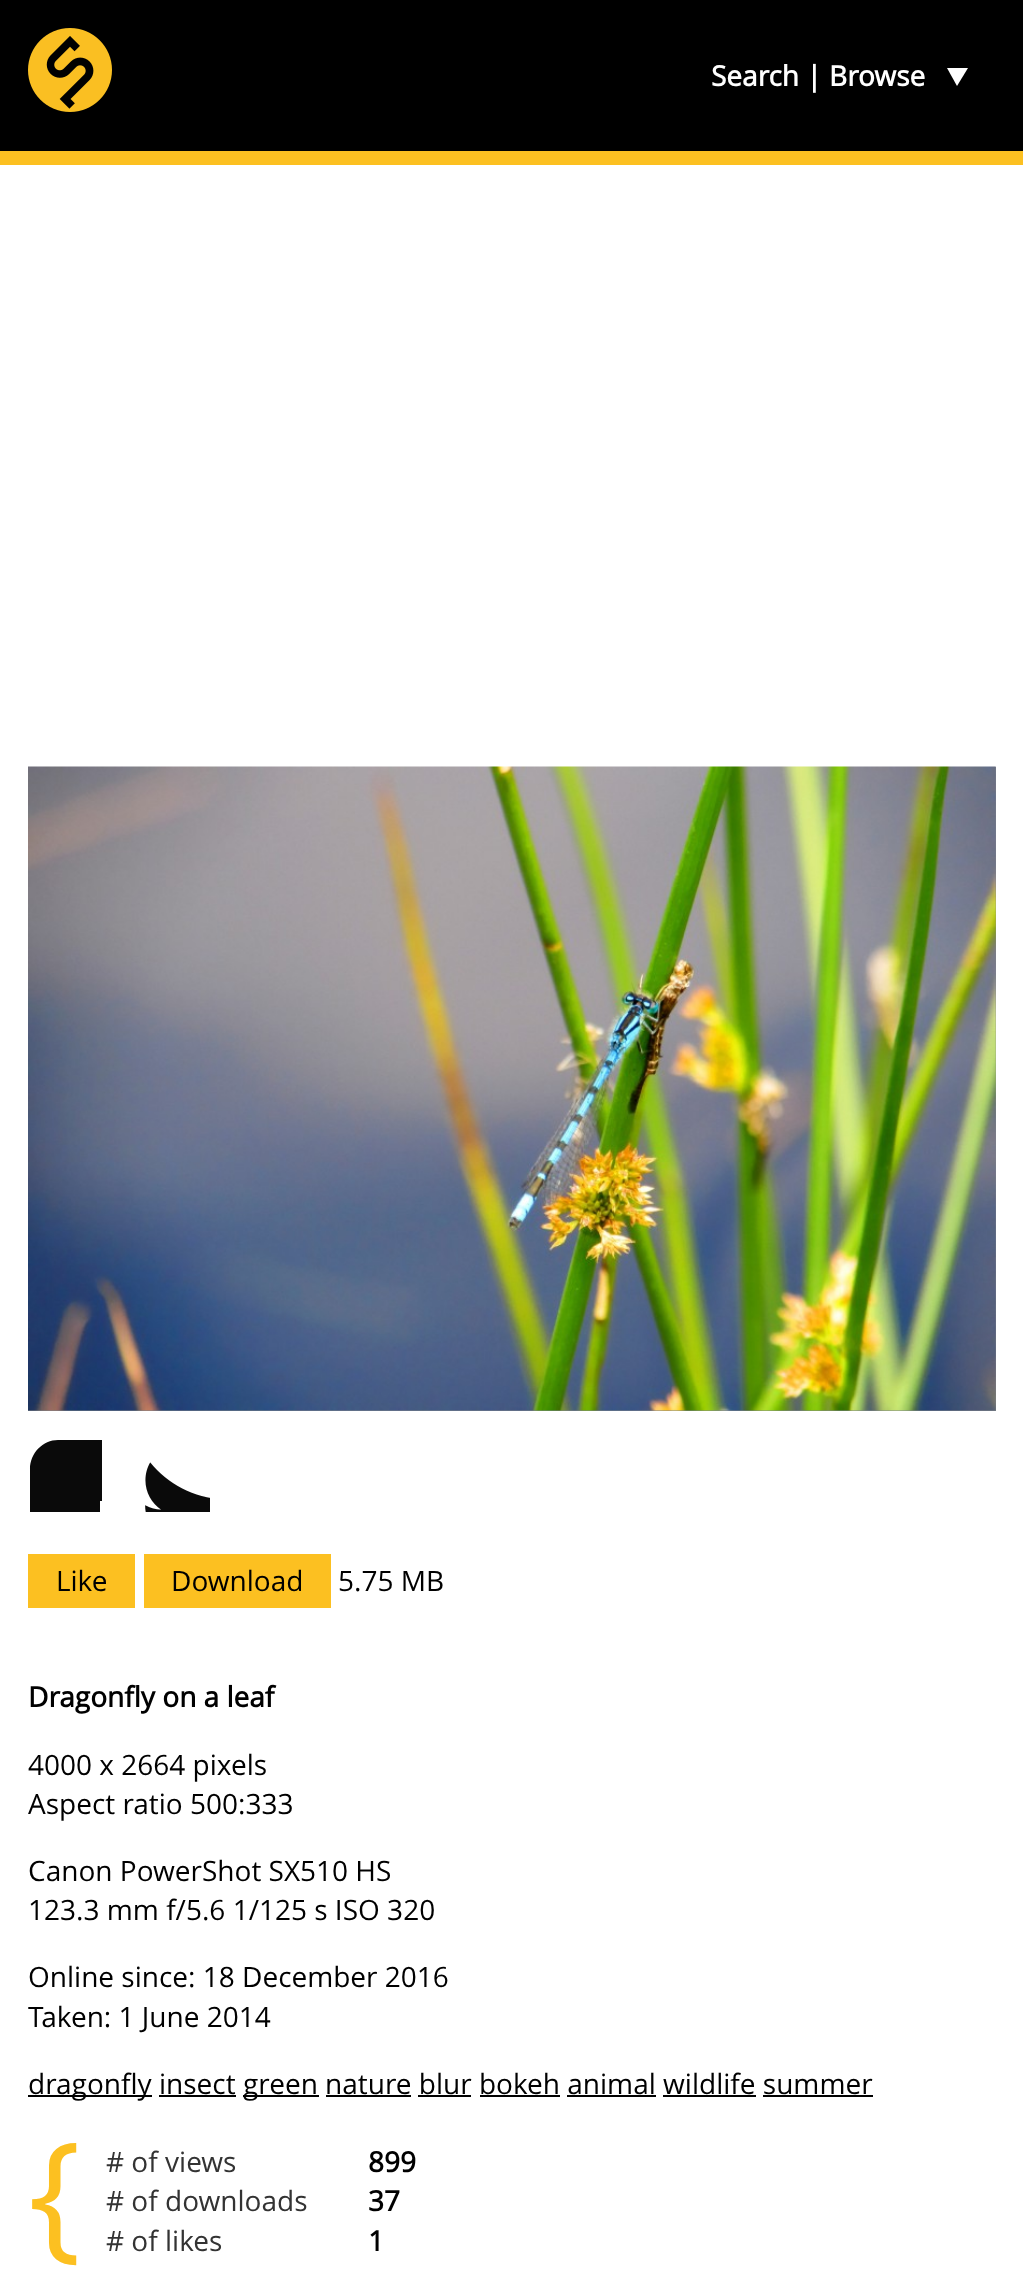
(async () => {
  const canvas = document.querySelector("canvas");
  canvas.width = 1023;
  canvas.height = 2284;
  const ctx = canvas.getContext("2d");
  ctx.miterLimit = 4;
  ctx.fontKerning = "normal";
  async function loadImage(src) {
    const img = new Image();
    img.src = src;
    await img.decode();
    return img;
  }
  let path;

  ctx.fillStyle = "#ffffff";
  ctx.fillRect(0, 0, 1023, 2284);
  ctx.fillStyle = "#000000";
  ctx.fillRect(0, 0, 1023, 151);
  ctx.fillStyle = "#fcc021";
  ctx.fillRect(0, 151, 1023, 14);
  ctx.drawImage(await loadImage("img/1.png"), 28, 28, 84, 84);
  ctx.fillStyle = "#ffffff";
  path = new Path2D("M947 68H968L957 86Z");
  ctx.fill(path);
  ctx.fillStyle = "#80868d";
  ctx.fillRect(28, 767, 968, 644);
  ctx.drawImage(await loadImage("img/2.png"), 28, 766, 968, 645);
  ctx.save();
  ctx.beginPath();
  ctx.rect(28, 1439, 74, 73);
  ctx.clip();
  ctx.fillStyle = "#0a0a0a";
  path = new Path2D("M173 1440H58C43 1440 30 1453 30 1469V1583C30 1599 43 1612 58 1612H173C188 1612 201 1599 201 1583V1469C201 1453 188 1440 173 1440ZM176 1526H148V1601H116V1526H100V1501H116V1486C116 1464 125 1451 150 1451H180V1478H156C149 1478 148 1481 148 1488V1501H180Z");
  ctx.fill(path);
  ctx.restore();
  ctx.drawImage(await loadImage("img/3.png"), 145, 1462, 65, 50);
  for (const [x, y, w, h, color] of [
    [28, 1554, 107, 54, "#fcc021"],
    [144, 1554, 187, 54, "#fcc021"],
    [28, 2095, 124, 2, "#000000"],
    [243, 2095, 76, 2, "#000000"],
    [159, 2095, 77, 2, "#000000"],
    [326, 2095, 85, 2, "#000000"],
    [418, 2095, 53, 2, "#000000"],
    [480, 2095, 80, 2, "#000000"],
    [567, 2095, 89, 2, "#000000"],
    [663, 2095, 93, 2, "#000000"],
    [763, 2095, 110, 2, "#000000"],
  ]) {
    ctx.fillStyle = color;
    ctx.fillRect(x, y, w, h);
  }
  ctx.font = "bold 28px Open Sans";
  ctx.fillStyle = "#ffffff";
  ctx.fillText("Search | Browse", 711, 86);
  ctx.font = "28px Open Sans";
  ctx.fillStyle = "#000000";
  for (const [text, x, y] of [
    ["Like", 56, 1591],
    ["Download", 171, 1591],
    ["5.75 MB", 338, 1591],
  ]) {
    ctx.fillText(text, x, y);
  }
  ctx.font = "bold 28px Open Sans";
  ctx.fillText("Dragonfly on a leaf", 28, 1707);
  ctx.font = "28px Open Sans";
  for (const [text, x, y] of [
    ["4000 x 2664 pixels", 28, 1775],
    ["Aspect ratio 500:333", 28, 1814],
    ["Canon PowerShot SX510 HS", 28, 1881],
    ["123.3 mm f/5.6 1/125 s ISO 320", 28, 1920],
    ["Online since: 18 December 2016", 28, 1987],
    ["Taken: 1 June 2014", 28, 2027],
    ["dragonfly insect", 28, 2094],
    ["green nature blur bokeh animal wildlife summer", 243, 2094],
  ]) {
    ctx.fillText(text, x, y);
  }
  ctx.font = "140px Open Sans";
  ctx.fillStyle = "#fcc021";
  ctx.fillText("{", 28, 2243);
  ctx.font = "28px Open Sans";
  ctx.fillStyle = "#333333";
  ctx.fillText("# of views", 106, 2172);
  ctx.font = "bold 28px Open Sans";
  ctx.fillStyle = "#000000";
  ctx.fillText("899", 368, 2172);
  ctx.font = "28px Open Sans";
  ctx.fillStyle = "#333333";
  ctx.fillText("# of downloads", 106, 2211);
  ctx.font = "bold 28px Open Sans";
  ctx.fillStyle = "#000000";
  ctx.fillText("37", 368, 2211);
  ctx.font = "28px Open Sans";
  ctx.fillStyle = "#333333";
  ctx.fillText("# of likes", 106, 2251);
  ctx.font = "bold 28px Open Sans";
  ctx.fillStyle = "#000000";
  ctx.fillText("1", 368, 2251);
})();
